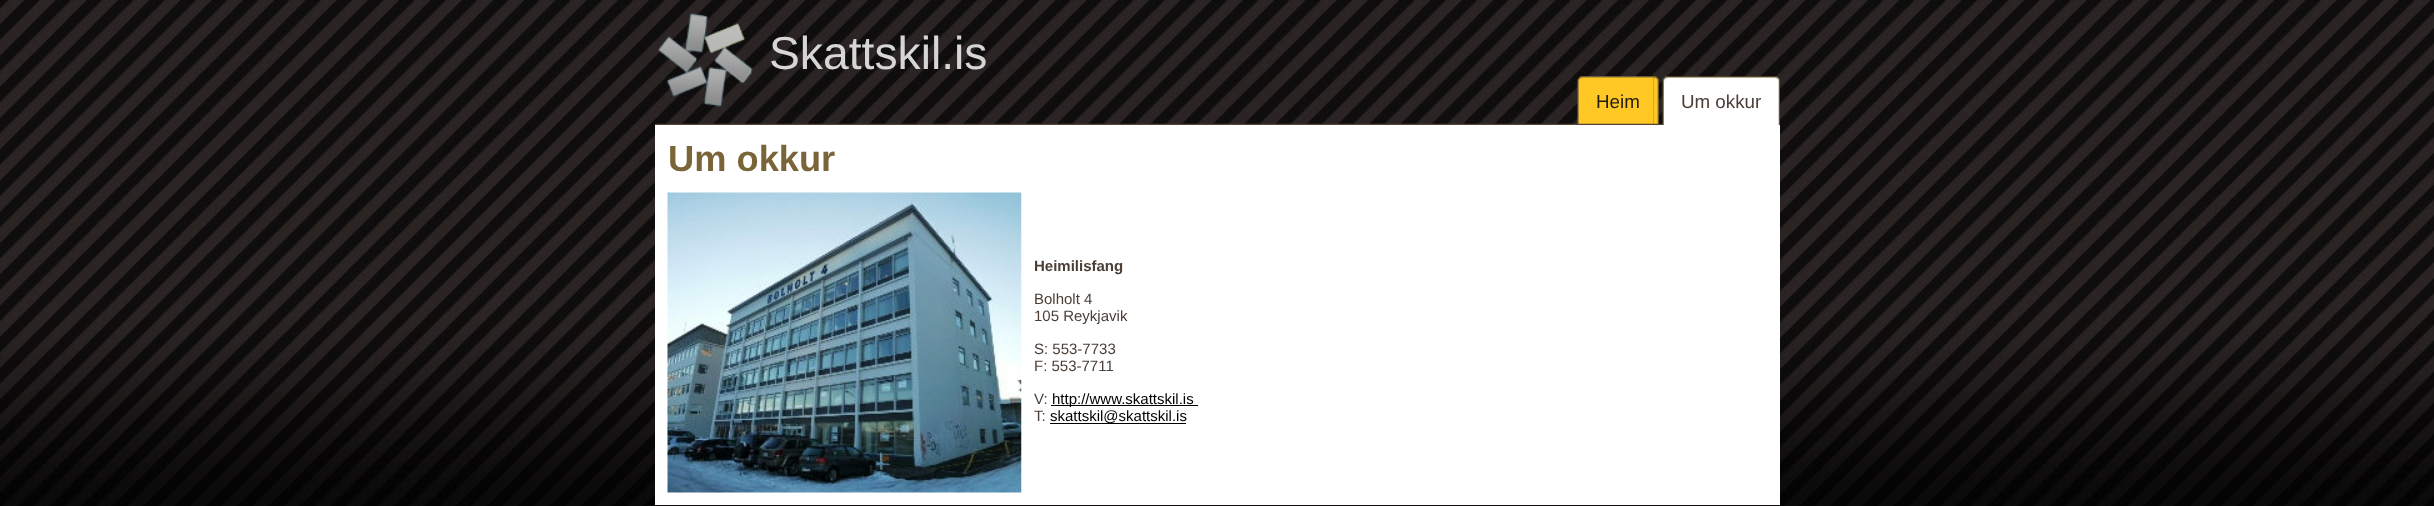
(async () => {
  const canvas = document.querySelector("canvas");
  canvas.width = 2434;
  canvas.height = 506;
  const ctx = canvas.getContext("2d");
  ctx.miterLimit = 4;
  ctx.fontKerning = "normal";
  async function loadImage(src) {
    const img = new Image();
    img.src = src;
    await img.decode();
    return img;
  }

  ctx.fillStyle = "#ffffff";
  ctx.fillRect(0, 0, 2434, 506);
  ctx.drawImage(await loadImage("img/1.png"), 0, 0, 2434, 506);
  ctx.drawImage(await loadImage("img/2.png"), 657, 13, 96, 94);
  ctx.drawImage(await loadImage("img/7.png"), 655, 123, 1008, 2);
  ctx.drawImage(await loadImage("img/3.png"), 1577, 76, 77, 48);
  ctx.drawImage(await loadImage("img/4.png"), 1653, 76, 6, 48);
  ctx.drawImage(await loadImage("img/5.png"), 1662, 76, 113, 49);
  ctx.drawImage(await loadImage("img/6.png"), 1775, 76, 5, 49);
  ctx.fillRect(655, 125, 1125, 380);
  ctx.drawImage(await loadImage("img/8.png"), 667, 192, 355, 301);
  for (const [x, y, w, h, color] of [
    [1051, 405, 147, 1, "#000000"],
    [1050, 423, 136, 1, "#000000"],
    [655, 505, 1125, 1, "#0d0b0c"],
  ]) {
    ctx.fillStyle = color;
    ctx.fillRect(x, y, w, h);
  }
  ctx.font = "46.25px Liberation Sans";
  ctx.fillStyle = "#d6d6d6";
  ctx.fillText("Skattskil.is", 769, 69);
  ctx.font = "18.75px Liberation Sans";
  ctx.fillStyle = "#231d10";
  ctx.fillText("Heim", 1596, 108);
  ctx.fillStyle = "#4a3e36";
  ctx.fillText("Um okkur", 1681, 108);
  ctx.font = "bold 36.25px Liberation Sans";
  ctx.fillStyle = "#7a6538";
  ctx.fillText("Um okkur", 668, 171);
  ctx.font = "bold 15px Liberation Sans";
  ctx.fillStyle = "#4a3e36";
  ctx.fillText("Heimilisfang", 1034, 271);
  ctx.font = "15px Liberation Sans";
  for (const [text, x, y] of [
    ["Bolholt 4", 1034, 304],
    ["105 Reykjavik", 1034, 321],
    ["S: 553-7733", 1034, 354],
    ["F: 553-7711", 1034, 371],
    ["V:", 1034, 404],
  ]) {
    ctx.fillText(text, x, y);
  }
  ctx.fillStyle = "#000000";
  ctx.fillText("http://www.skattskil.is", 1052, 404);
  ctx.fillStyle = "#4a3e36";
  ctx.fillText("T:", 1034, 421);
  ctx.fillStyle = "#000000";
  ctx.fillText("skattskil@skattskil.is", 1050, 421);
})();
